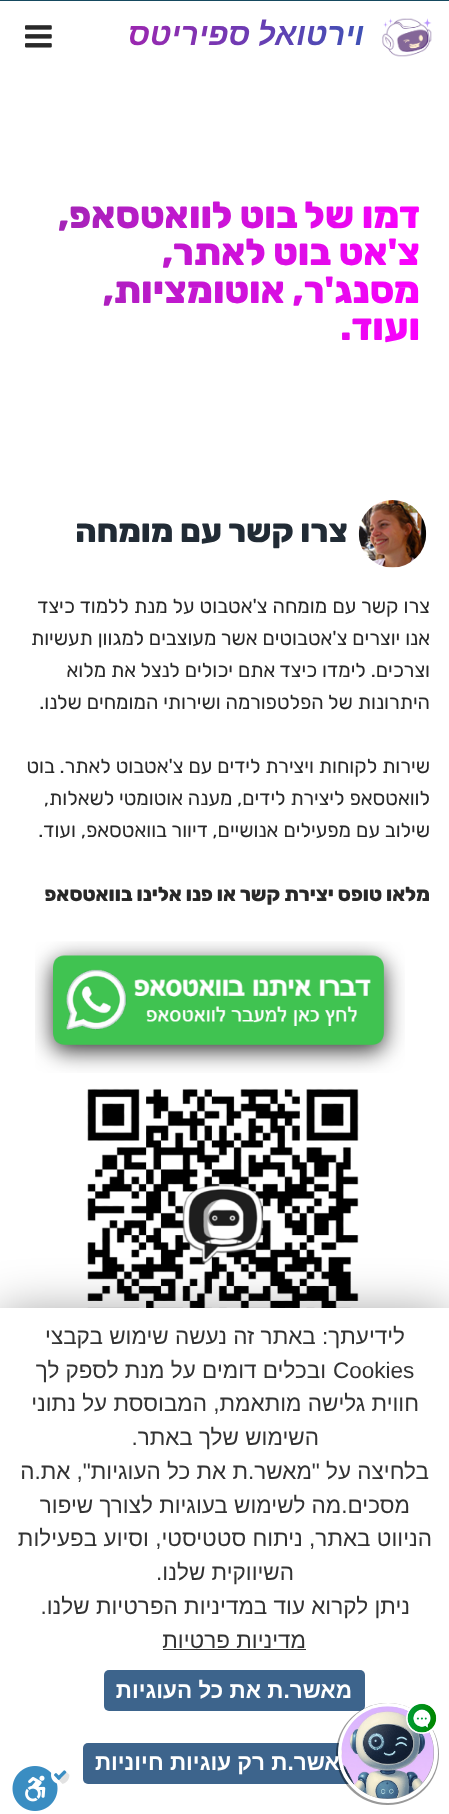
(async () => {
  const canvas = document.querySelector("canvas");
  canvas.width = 449;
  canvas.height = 1814;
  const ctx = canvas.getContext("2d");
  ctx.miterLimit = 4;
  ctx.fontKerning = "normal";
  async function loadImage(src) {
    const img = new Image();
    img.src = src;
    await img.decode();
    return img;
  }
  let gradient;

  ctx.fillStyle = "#ffffff";
  ctx.fillRect(0, 0, 449, 1814);
  ctx.fillStyle = "#15495f";
  ctx.fillRect(0, 0, 449, 1);
  ctx.drawImage(await loadImage("img/5.png"), 35, 941, 370, 367);
  ctx.fillStyle = "rgba(0, 0, 0, 0.4)";
  ctx.filter = "blur(25px)";
  ctx.beginPath();
  ctx.rect(-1, 1314, 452, 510);
  ctx.fill();
  ctx.filter = "none";
  ctx.fillStyle = "#ffffff";
  ctx.fillRect(0, 1308, 449, 506);
  ctx.drawImage(await loadImage("img/1.png"), 12, 1766, 58, 45);
  ctx.drawImage(await loadImage("img/2.png"), 382, 18, 50, 39);
  ctx.drawImage(await loadImage("img/3.png"), 25, 25, 27, 23);
  ctx.drawImage(await loadImage("img/4.png"), 358, 500, 69, 68);
  ctx.fillStyle = "#333333";
  ctx.fillRect(163, 1649, 143, 1);
  ctx.fillStyle = "#3d648c";
  ctx.beginPath();
  ctx.roundRect(104, 1670, 261, 41, 5);
  ctx.fill();
  ctx.beginPath();
  ctx.roundRect(83, 1743, 285, 41, 5);
  ctx.fill();
  ctx.fillStyle = "rgba(0, 0, 0, 0.4)";
  ctx.filter = "blur(0.5px)";
  ctx.beginPath();
  ctx.roundRect(336, 1703, 103, 102, 51);
  ctx.fill();
  ctx.filter = "none";
  ctx.beginPath();
  ctx.arc(388, 1753, 48, 0, Math.PI * 2);
  ctx.strokeStyle = "#ffffff";
  ctx.lineWidth = 4;
  ctx.stroke();
  ctx.wordSpacing = "-1px";
  ctx.direction = "rtl";
  ctx.font = "italic bold 31.25px Liberation Sans";
  gradient = ctx.createLinearGradient(128, 34, 364, 34);
  gradient.addColorStop(0, "#9c27b0");
  gradient.addColorStop(1, "#3f51b5");
  ctx.fillStyle = gradient;
  ctx.fillText("וירטואל ספיריטס", 364, 45);
  ctx.wordSpacing = "0px";
  ctx.font = "800 37.5px Rubik";
  gradient = ctx.createLinearGradient(30, 271, 420, 271);
  gradient.addColorStop(0, "#9c27b0");
  gradient.addColorStop(1, "#fc00ff");
  ctx.fillStyle = gradient;
  for (const [text, x, y] of [
    ["דמו של בוט לוואטסאפ,", 420, 228],
    ["צ'אט בוט לאתר,", 420, 265],
    ["מסנג'ר, אוטומציות,", 420, 303],
    ["ועוד.", 420, 340],
  ]) {
    ctx.fillText(text, x, y);
  }
  ctx.font = "800 32.5px Rubik";
  ctx.fillStyle = "#212b35";
  ctx.fillText("צרו קשר עם מומחה", 348, 542);
  ctx.wordSpacing = "0.25px";
  ctx.font = "20px Rubik";
  ctx.fillStyle = "#292929";
  ctx.fillText("צרו קשר עם מומחה צ'אטבוט על מנת ללמוד כיצד", 430, 613);
  ctx.wordSpacing = "0px";
  for (const [text, x, y] of [
    ["אנו יוצרים צ'אטבוטים אשר מעוצבים למגוון תעשיות", 430, 645],
    ["וצרכים. לימדו כיצד אתם יכולים לנצל את מלוא", 430, 677],
    ["היתרונות של הפלטפורמה ושירותי המומחים שלנו.", 430, 709],
    ["שירות לקוחות ויצירת לידים עם צ'אטבוט לאתר. בוט", 430, 773],
    ["לוואטסאפ ליצירת לידים, מענה אוטומטי לשאלות,", 430, 805],
    ["שילוב", 430, 837],
  ]) {
    ctx.fillText(text, x, y);
  }
  ctx.wordSpacing = "0.25px";
  ctx.fillText("עם מפעילים אנושיים, דיוור בוואטסאפ, ועוד.", 380, 837);
  ctx.wordSpacing = "0px";
  ctx.font = "800 20px Rubik";
  ctx.fillText("מלאו טופס יצירת קשר או פנו אלינו בוואטסאפ", 430, 901);
  ctx.font = "22.5px Liberation Sans";
  ctx.fillStyle = "#333333";
  ctx.fillText("לידיעתך: באתר זה נעשה שימוש בקבצי", 405, 1344);
  ctx.direction = "ltr";
  ctx.fillText("Cookies", 333, 1378);
  ctx.direction = "rtl";
  for (const [text, x, y] of [
    ["ובכלים דומים על מנת לספק לך", 326, 1378],
    ["חווית גלישה מותאמת, המבוססת על נתוני", 419, 1411],
    ["השימוש שלך באתר.", 319, 1445],
    ["בלחיצה על \"מאשר.ת את כל העוגיות\", את.ה", 429, 1479],
    ["מסכים.מה לשימוש בעוגיות לצורך שיפור", 410, 1513],
    ["הניווט באתר, ניתוח סטטיסטי, וסיוע בפעילות", 432, 1546],
    ["השיווקית שלנו.", 294, 1580],
    ["ניתן לקרוא עוד במדיניות הפרטיות שלנו.", 410, 1614],
    ["מדיניות פרטיות", 306, 1648],
  ]) {
    ctx.fillText(text, x, y);
  }
  ctx.font = "bold 22.5px Liberation Sans";
  ctx.fillStyle = "#ffffff";
  ctx.fillText("מאשר.ת את כל העוגיות", 352, 1698);
  ctx.fillText("מאשר.ת רק עוגיות חיוניות", 356, 1770);
  ctx.drawImage(await loadImage("img/6.png"), 341, 1706, 93, 93);
  ctx.beginPath();
  ctx.roundRect(406.5, 1703.5, 31, 30, 15);
  ctx.fill();
  ctx.lineWidth = 1;
  ctx.stroke();
  ctx.drawImage(await loadImage("img/7.png"), 407, 1703, 30, 30);
})();
